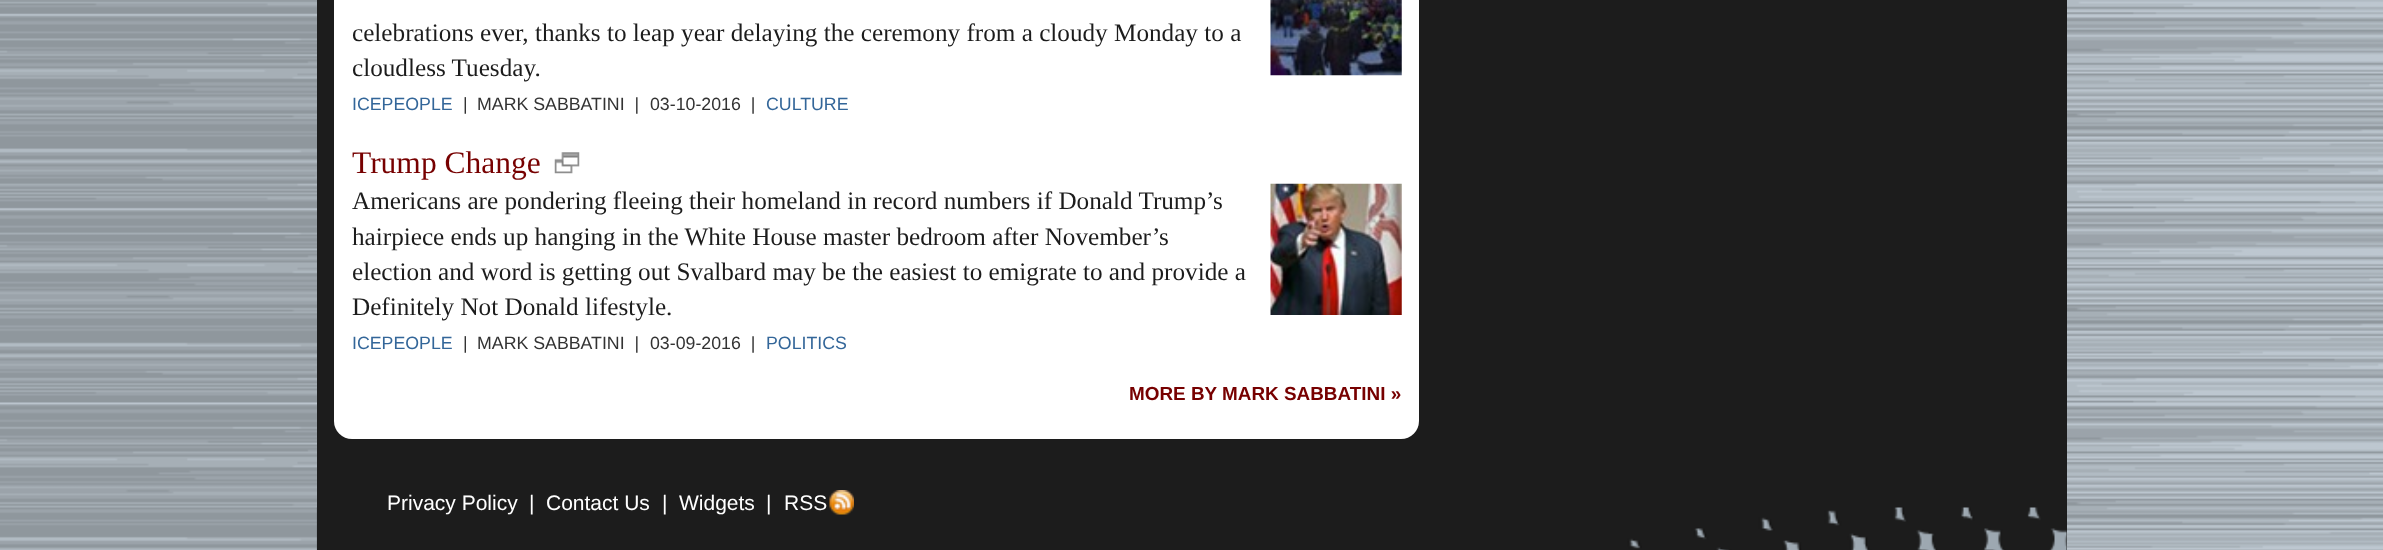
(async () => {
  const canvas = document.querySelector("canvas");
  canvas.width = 2383;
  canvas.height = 550;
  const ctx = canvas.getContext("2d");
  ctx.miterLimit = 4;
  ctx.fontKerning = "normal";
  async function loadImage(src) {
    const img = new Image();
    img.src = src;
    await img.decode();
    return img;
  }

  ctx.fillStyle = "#ffffff";
  ctx.fillRect(0, 0, 2383, 550);
  ctx.drawImage(await loadImage("img/1.png"), 0, 0, 2383, 550);
  ctx.fillStyle = "#1c1c1c";
  ctx.fillRect(317, 0, 1750, 550);
  ctx.fillStyle = "#ffffff";
  ctx.beginPath();
  ctx.roundRect(334, -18, 1085, 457, 18);
  ctx.fill();
  ctx.drawImage(await loadImage("img/2.png"), 1270, 0, 132, 76);
  ctx.drawImage(await loadImage("img/3.png"), 554, 152, 26, 22);
  ctx.drawImage(await loadImage("img/4.png"), 1270, 183, 132, 132);
  ctx.drawImage(await loadImage("img/5.png"), 316, 507, 1751, 43);
  ctx.drawImage(await loadImage("img/6.png"), 829, 490, 25, 25);
  ctx.font = "25.2px Liberation Serif";
  ctx.fillStyle = "#1c1c1c";
  ctx.fillText("celebrations ever, thanks to leap year delaying the ceremony from a cloudy Monday to a", 352, 41);
  ctx.fillText("cloudless Tuesday.", 352, 76);
  ctx.font = "17.75px Liberation Sans";
  ctx.fillStyle = "#336699";
  ctx.fillText("ICEPEOPLE", 352, 110);
  ctx.fillStyle = "#333333";
  for (const [text, x, y] of [
    ["|", 463, 110],
    ["MARK SABBATINI  |", 477, 110],
    ["03-10-2016  |", 650, 110],
  ]) {
    ctx.fillText(text, x, y);
  }
  ctx.fillStyle = "#336699";
  ctx.fillText("CULTURE", 766, 110);
  ctx.font = "31.5px Liberation Serif";
  ctx.fillStyle = "#770000";
  ctx.fillText("Trump Change", 352, 173);
  ctx.font = "25.2px Liberation Serif";
  ctx.fillStyle = "#1c1c1c";
  for (const [text, x, y] of [
    ["Americans are pondering fleeing their homeland in record numbers if Donald Trump’s", 352, 209],
    ["hairpiece ends up hanging in the White House master bedroom after November’s", 352, 245],
    ["election and word is getting out Svalbard may be the easiest to emigrate to and provide a", 352, 280],
    ["Definitely Not Donald lifestyle.", 352, 315],
  ]) {
    ctx.fillText(text, x, y);
  }
  ctx.font = "17.75px Liberation Sans";
  ctx.fillStyle = "#336699";
  ctx.fillText("ICEPEOPLE", 352, 349);
  ctx.fillStyle = "#333333";
  for (const [text, x, y] of [
    ["|", 463, 349],
    ["MARK SABBATINI  |", 477, 349],
    ["03-09-2016  |", 650, 349],
  ]) {
    ctx.fillText(text, x, y);
  }
  ctx.fillStyle = "#336699";
  ctx.fillText("POLITICS", 766, 349);
  ctx.font = "bold 18.9px Liberation Sans";
  ctx.fillStyle = "#770000";
  ctx.fillText("MORE BY MARK SABBATINI »", 1129, 400);
  ctx.font = "21px Liberation Sans";
  ctx.fillStyle = "#ffffff";
  for (const [text, x, y] of [
    ["Privacy Policy", 387, 510],
    ["|", 529, 510],
    ["Contact Us", 546, 510],
    ["|", 662, 510],
    ["Widgets", 679, 510],
    ["|", 766, 510],
    ["RSS", 784, 510],
  ]) {
    ctx.fillText(text, x, y);
  }
})();
